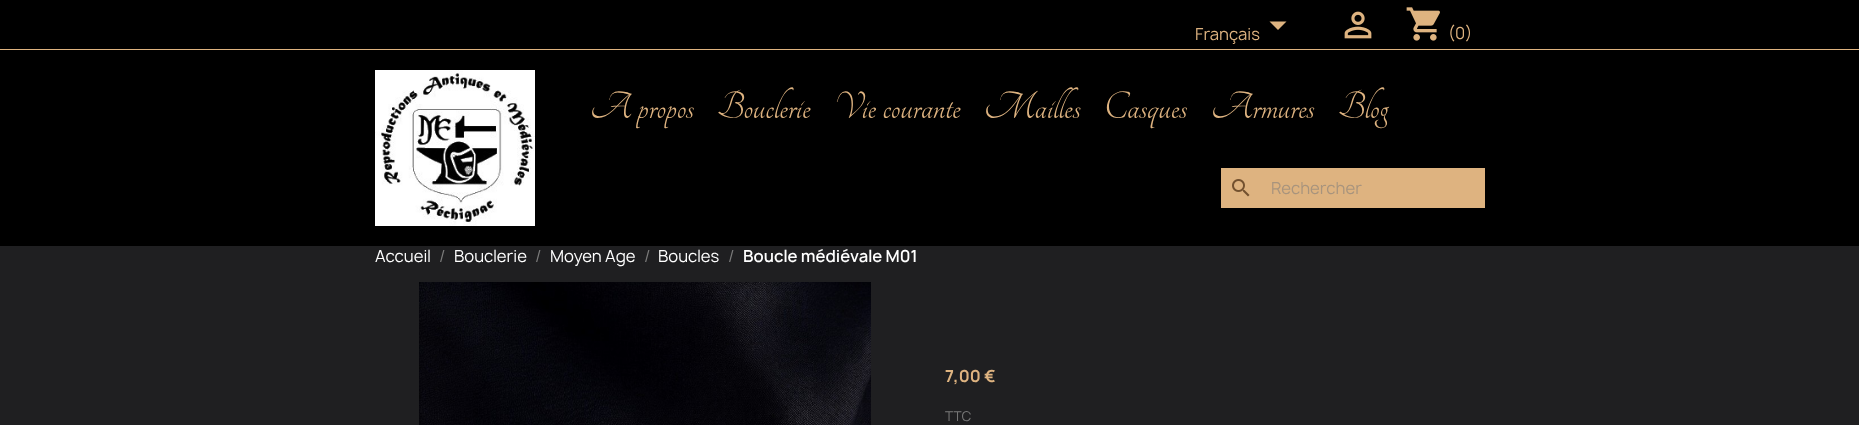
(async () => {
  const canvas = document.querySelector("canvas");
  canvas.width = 1859;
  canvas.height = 425;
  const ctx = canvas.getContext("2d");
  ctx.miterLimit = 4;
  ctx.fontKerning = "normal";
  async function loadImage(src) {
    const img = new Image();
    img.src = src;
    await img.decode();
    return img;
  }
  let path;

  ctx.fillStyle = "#1f1f21";
  ctx.fillRect(0, 0, 1859, 425);
  ctx.fillStyle = "#000000";
  ctx.fillRect(0, 0, 1859, 246);
  ctx.fillStyle = "#deb380";
  ctx.fillRect(0, 49, 1859, 1);
  path = new Path2D("M1269.5 21.5H1286.5L1278 30Z");
  ctx.fill(path);
  ctx.drawImage(await loadImage("img/1.png"), 1344, 11, 28, 28);
  ctx.drawImage(await loadImage("img/2.png"), 1406, 7, 34, 34);
  ctx.drawImage(await loadImage("img/3.png"), 375, 70, 160, 156);
  ctx.fillRect(1221, 168, 264, 40);
  ctx.drawImage(await loadImage("img/4.png"), 1232, 179, 18, 18);
  ctx.drawImage(await loadImage("img/5.png"), 419, 282, 452, 143);
  ctx.font = "16px Manrope";
  ctx.fillText("Français", 1195, 40);
  ctx.fillText("(0)", 1448, 39);
  ctx.font = "41.5px Tangerine";
  for (const [text, x, y] of [
    ["A propos", 590, 118],
    ["Bouclerie", 717, 118],
    ["Vie courante", 834, 118],
    ["Mailles", 984, 118],
    ["Casques", 1104, 118],
    ["Armures", 1211, 118],
    ["Blog", 1338, 118],
  ]) {
    ctx.fillText(text, x, y);
  }
  ctx.font = "16px Manrope";
  ctx.fillStyle = "#a8947d";
  ctx.fillText("Rechercher", 1271, 194);
  ctx.fillStyle = "#ffffff";
  ctx.fillText("Accueil", 375, 262);
  ctx.fillStyle = "#7a7a7a";
  ctx.fillText("/", 439, 262);
  ctx.fillStyle = "#ffffff";
  ctx.fillText("Bouclerie", 454, 262);
  ctx.fillStyle = "#7a7a7a";
  ctx.fillText("/", 535, 262);
  ctx.fillStyle = "#ffffff";
  ctx.fillText("Moyen Age", 550, 262);
  ctx.fillStyle = "#7a7a7a";
  ctx.fillText("/", 644, 262);
  ctx.fillStyle = "#ffffff";
  ctx.fillText("Boucles", 658, 262);
  ctx.fillStyle = "#7a7a7a";
  ctx.fillText("/", 728, 262);
  ctx.font = "600 16px Manrope";
  ctx.fillStyle = "#ffffff";
  ctx.fillText("Boucle médiévale M01", 743, 262);
  ctx.font = "bold 16px Manrope";
  ctx.fillStyle = "#deb380";
  ctx.fillText("7,00 €", 945, 382);
  ctx.font = "13px Manrope";
  ctx.fillStyle = "#7a7a7a";
  ctx.fillText("TTC", 945, 421);
})();
